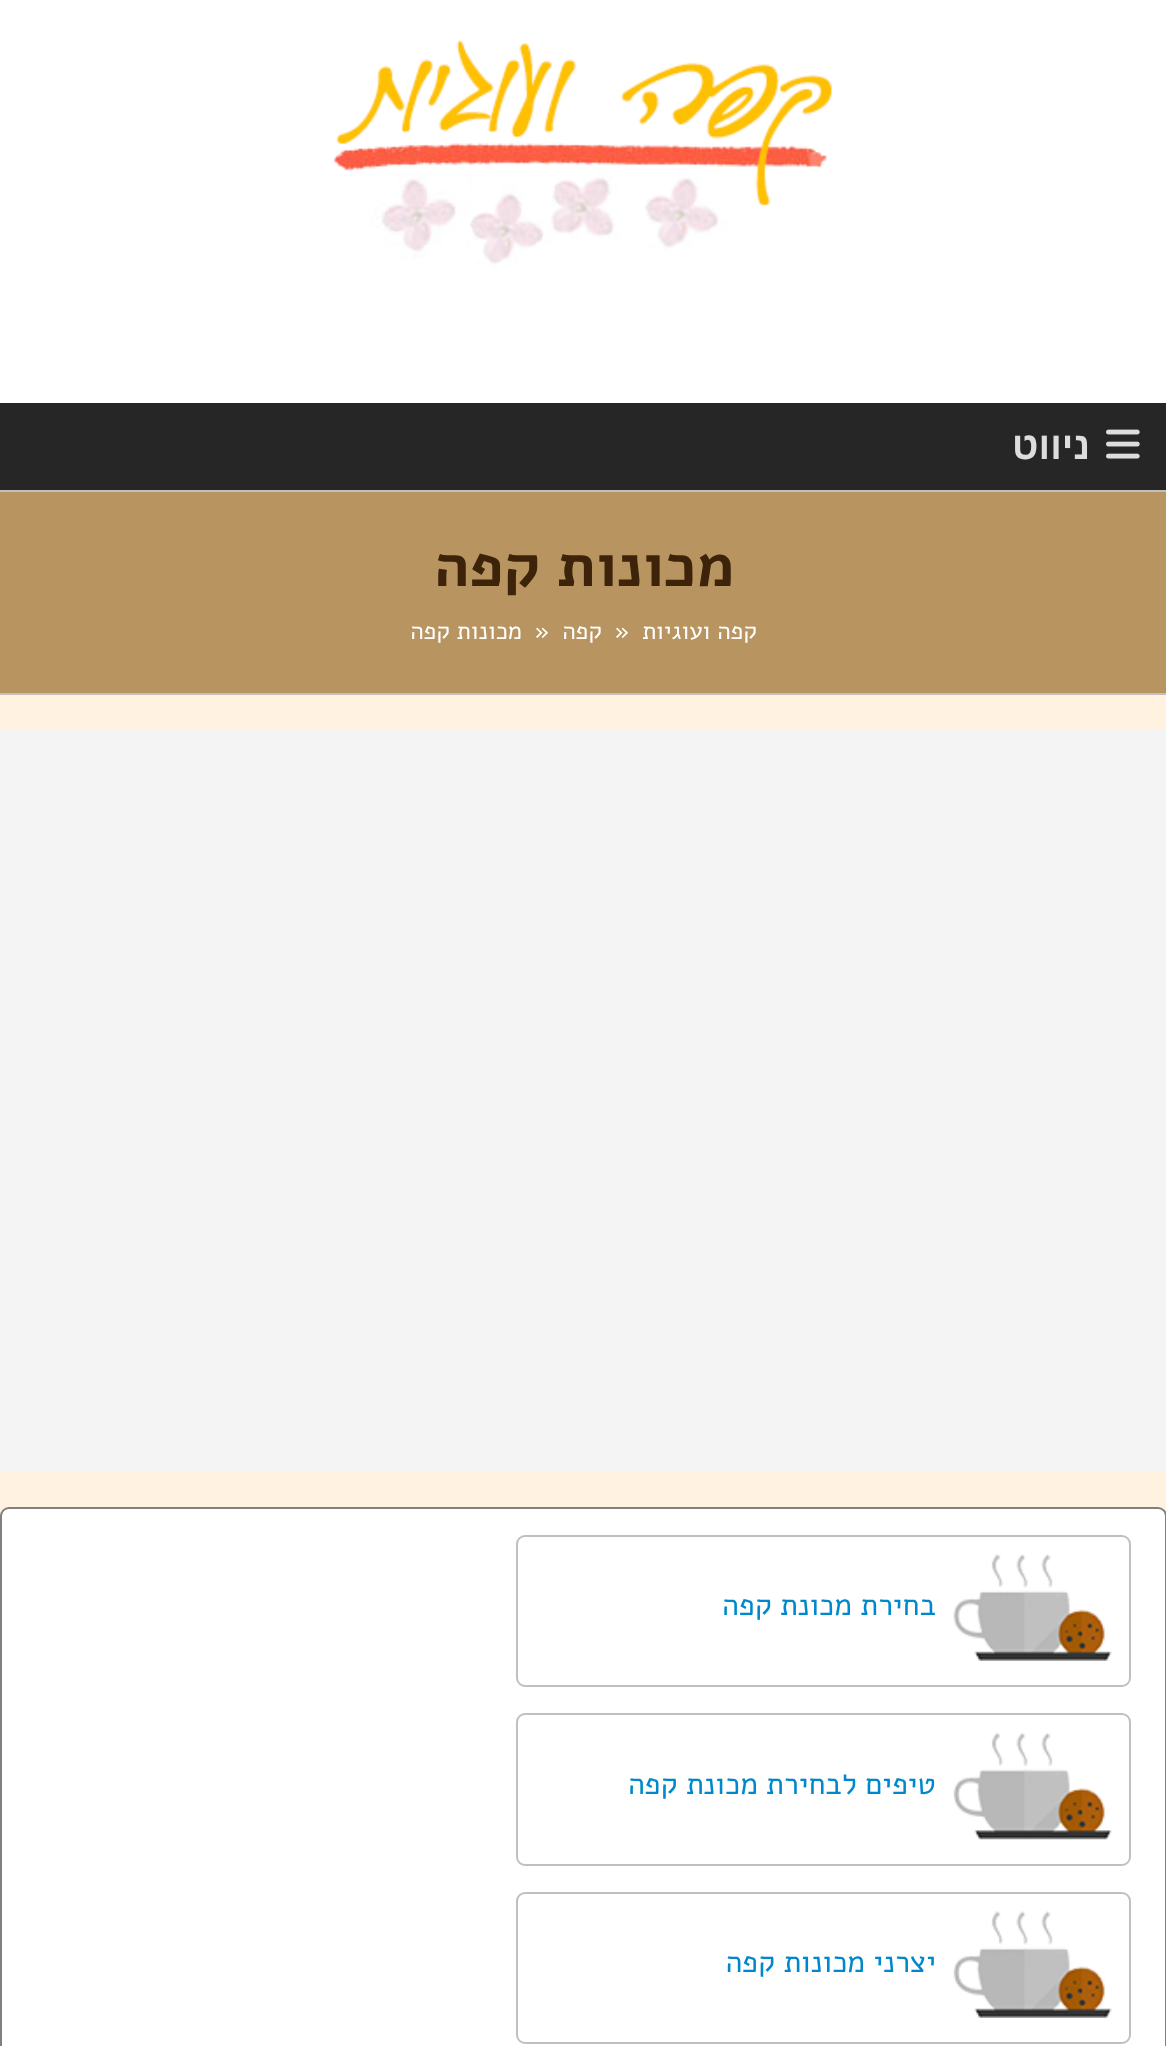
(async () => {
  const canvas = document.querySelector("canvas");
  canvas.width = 1166;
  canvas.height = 2046;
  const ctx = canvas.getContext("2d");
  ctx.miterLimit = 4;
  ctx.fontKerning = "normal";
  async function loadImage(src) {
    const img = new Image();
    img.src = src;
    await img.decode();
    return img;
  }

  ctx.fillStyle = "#fff2e1";
  ctx.fillRect(0, 0, 1166, 2046);
  ctx.fillStyle = "#ffffff";
  ctx.fillRect(0, 0, 1166, 403);
  ctx.fillStyle = "#c0c0c0";
  ctx.fillRect(0, 490, 1166, 2);
  ctx.drawImage(await loadImage("img/1.png"), 333, 39, 499, 233);
  ctx.fillStyle = "#262626";
  ctx.fillRect(0, 403, 1166, 87);
  ctx.drawImage(await loadImage("img/2.png"), 1106, 429, 34, 30);
  for (const [x, y, w, h, color] of [
    [0, 492, 1166, 201, "#b89560"],
    [0, 693, 1166, 2, "#c0c0c0"],
    [0, 730, 1166, 742, "#f4f4f4"],
  ]) {
    ctx.fillStyle = color;
    ctx.fillRect(x, y, w, h);
  }
  ctx.fillStyle = "#ffffff";
  ctx.beginPath();
  ctx.roundRect(1, 1508, 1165, 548, 8);
  ctx.fill();
  ctx.strokeStyle = "#808080";
  ctx.lineWidth = 2;
  ctx.stroke();
  ctx.drawImage(await loadImage("img/3.png"), 953, 1554, 159, 107);
  ctx.beginPath();
  ctx.roundRect(517, 1536, 613, 150, 8);
  ctx.strokeStyle = "#c0c0c0";
  ctx.stroke();
  ctx.drawImage(await loadImage("img/4.png"), 953, 1732, 159, 108);
  ctx.beginPath();
  ctx.roundRect(517, 1714, 613, 151, 8);
  ctx.stroke();
  ctx.drawImage(await loadImage("img/3.png"), 953, 1911, 159, 107);
  ctx.beginPath();
  ctx.roundRect(517, 1893, 613, 150, 8);
  ctx.stroke();
  ctx.direction = "rtl";
  ctx.font = "bold 38.5px Liberation Sans";
  ctx.fillStyle = "#dddddd";
  ctx.fillText("ניווט", 1090, 459);
  ctx.font = "bold 60.5px Alef";
  ctx.fillStyle = "#3c2309";
  ctx.fillText("מכונות קפה", 734, 586);
  ctx.font = "24.25px Alef";
  ctx.fillStyle = "#ffffff";
  ctx.fillText("קפה ועוגיות", 757, 639);
  ctx.direction = "ltr";
  ctx.fillText("»", 614, 639);
  ctx.direction = "rtl";
  ctx.fillText("קפה", 602, 639);
  ctx.direction = "ltr";
  ctx.fillText("»", 534, 639);
  ctx.direction = "rtl";
  ctx.fillText("מכונות קפה", 522, 639);
  ctx.font = "30.25px Alef";
  ctx.fillStyle = "#0088cc";
  for (const [text, x, y] of [
    ["בחירת מכונת קפה", 936, 1615],
    ["טיפים לבחירת מכונת קפה", 936, 1794],
    ["יצרני מכונות קפה", 936, 1972],
  ]) {
    ctx.fillText(text, x, y);
  }
})();
